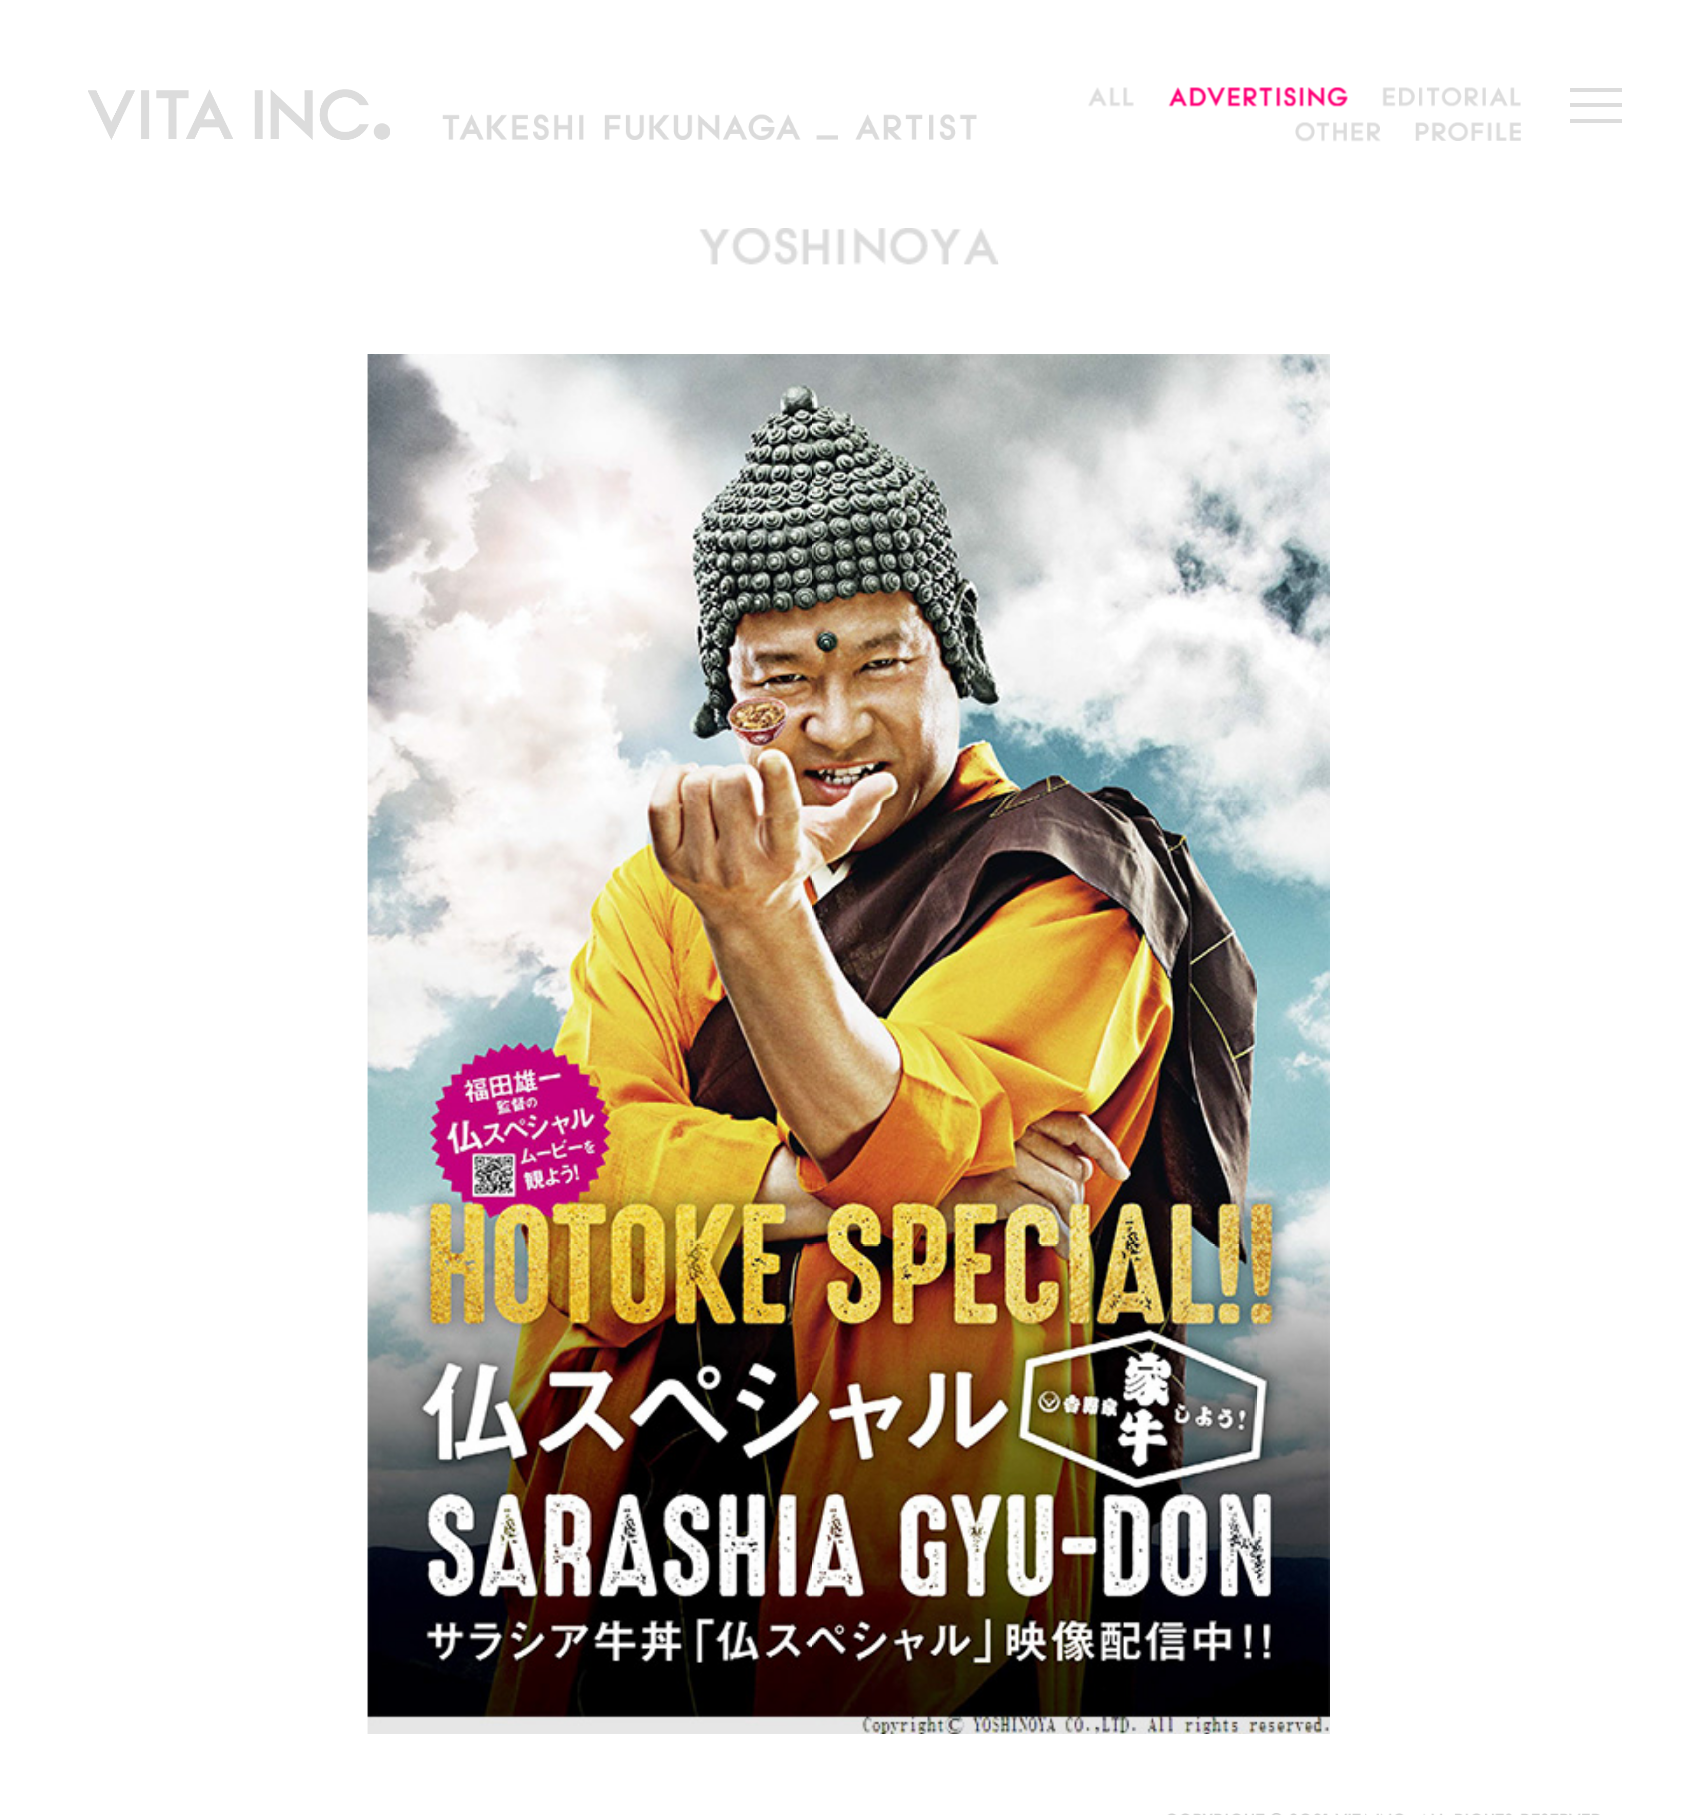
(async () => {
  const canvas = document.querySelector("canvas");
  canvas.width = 1695;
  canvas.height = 1815;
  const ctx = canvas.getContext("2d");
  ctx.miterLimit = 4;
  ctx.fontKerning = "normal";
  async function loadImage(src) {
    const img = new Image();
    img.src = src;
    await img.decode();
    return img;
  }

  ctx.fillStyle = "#ffffff";
  ctx.fillRect(0, 0, 1695, 1815);
  ctx.drawImage(await loadImage("img/1.png"), 88, 89, 302, 51);
  ctx.drawImage(await loadImage("img/2.png"), 442, 114, 535, 26);
  ctx.drawImage(await loadImage("img/3.png"), 1088, 87, 46, 20);
  ctx.drawImage(await loadImage("img/4.png"), 1168, 87, 180, 20);
  ctx.drawImage(await loadImage("img/5.png"), 1382, 87, 139, 20);
  ctx.drawImage(await loadImage("img/6.png"), 1295, 122, 86, 20);
  ctx.drawImage(await loadImage("img/7.png"), 1415, 122, 106, 19);
  for (const [x, y, w, h, color] of [
    [1570, 103, 52, 4, "#dcdcdc"],
    [1570, 88, 52, 4, "#dcdcdc"],
    [1570, 119, 52, 4, "#dcdcdc"],
  ]) {
    ctx.fillStyle = color;
    ctx.fillRect(x, y, w, h);
  }
  ctx.drawImage(await loadImage("img/8.png"), 699, 228, 300, 37);
  ctx.drawImage(await loadImage("img/9.png"), 367, 354, 963, 1380);
  ctx.drawImage(await loadImage("img/10.png"), 1167, 1813, 433, 2);
})();
